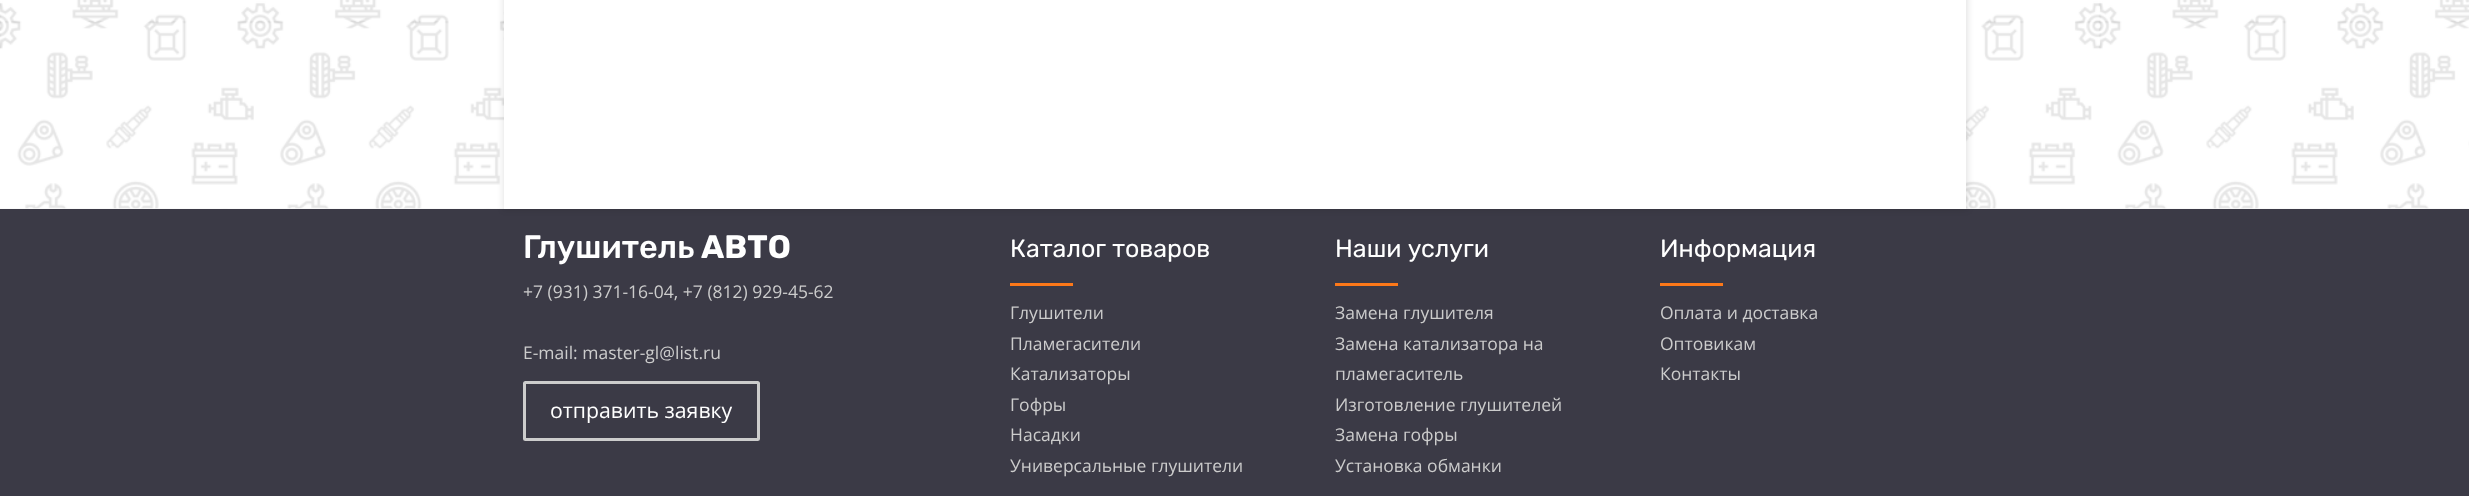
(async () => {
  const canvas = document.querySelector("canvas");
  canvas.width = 2469;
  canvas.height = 496;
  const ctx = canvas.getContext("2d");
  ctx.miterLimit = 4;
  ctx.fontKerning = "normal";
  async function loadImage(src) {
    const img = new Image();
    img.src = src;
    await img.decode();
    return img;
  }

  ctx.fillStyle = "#f9f9f9";
  ctx.fillRect(0, 0, 2469, 496);
  ctx.drawImage(await loadImage("img/1.png"), 0, 0, 2469, 209);
  ctx.fillStyle = "#3b3a46";
  ctx.fillRect(0, 209, 2469, 287);
  ctx.fillStyle = "rgba(0, 0, 0, 0.1)";
  ctx.filter = "blur(3px)";
  ctx.beginPath();
  ctx.rect(503, -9, 1465, 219);
  ctx.fill();
  ctx.filter = "none";
  ctx.fillStyle = "#ffffff";
  ctx.fillRect(504, 0, 1462, 209);
  ctx.beginPath();
  ctx.roundRect(524.5, 382.5, 234, 57, 1);
  ctx.strokeStyle = "#cccccc";
  ctx.lineWidth = 3;
  ctx.stroke();
  for (const [x, y, w, h, color] of [
    [1010, 283, 63, 3, "#fc7819"],
    [1335, 283, 63, 3, "#fc7819"],
    [1660, 283, 63, 3, "#fc7819"],
  ]) {
    ctx.fillStyle = color;
    ctx.fillRect(x, y, w, h);
  }
  ctx.font = "500 32.5px Rubik";
  ctx.fillStyle = "#ffffff";
  ctx.fillText("Глушитель", 523, 258);
  ctx.font = "bold 32.5px Rubik";
  ctx.fillText("АВТО", 701, 258);
  ctx.font = "17.5px Open Sans";
  ctx.fillStyle = "#cccccc";
  ctx.fillText("+7 (931) 371-16-04, +7 (812) 929-45-62", 523, 298);
  ctx.fillText("E-mail: master-gl@list.ru", 523, 359);
  ctx.font = "21.25px Open Sans";
  ctx.fillStyle = "#ffffff";
  ctx.fillText("отправить заявку", 550, 418);
  ctx.font = "25px Rubik";
  ctx.fillText("Каталог товаров", 1010, 257);
  ctx.font = "17.5px Open Sans";
  ctx.fillStyle = "#cccccc";
  for (const [text, x, y] of [
    ["Глушители", 1010, 319],
    ["Пламегасители", 1010, 350],
    ["Катализаторы", 1010, 380],
    ["Гофры", 1010, 411],
    ["Насадки", 1010, 441],
    ["Универсальные глушители", 1010, 472],
  ]) {
    ctx.fillText(text, x, y);
  }
  ctx.font = "25px Rubik";
  ctx.fillStyle = "#ffffff";
  ctx.fillText("Наши услуги", 1335, 257);
  ctx.font = "17.5px Open Sans";
  ctx.fillStyle = "#cccccc";
  for (const [text, x, y] of [
    ["Замена глушителя", 1335, 319],
    ["Замена катализатора на", 1335, 350],
    ["пламегаситель", 1335, 380],
    ["Изготовление глушителей", 1335, 411],
    ["Замена гофры", 1335, 441],
    ["Установка обманки", 1335, 472],
  ]) {
    ctx.fillText(text, x, y);
  }
  ctx.font = "25px Rubik";
  ctx.fillStyle = "#ffffff";
  ctx.fillText("Информация", 1660, 257);
  ctx.font = "17.5px Open Sans";
  ctx.fillStyle = "#cccccc";
  for (const [text, x, y] of [
    ["Оплата и доставка", 1660, 319],
    ["Оптовикам", 1660, 350],
    ["Контакты", 1660, 380],
  ]) {
    ctx.fillText(text, x, y);
  }
})();
